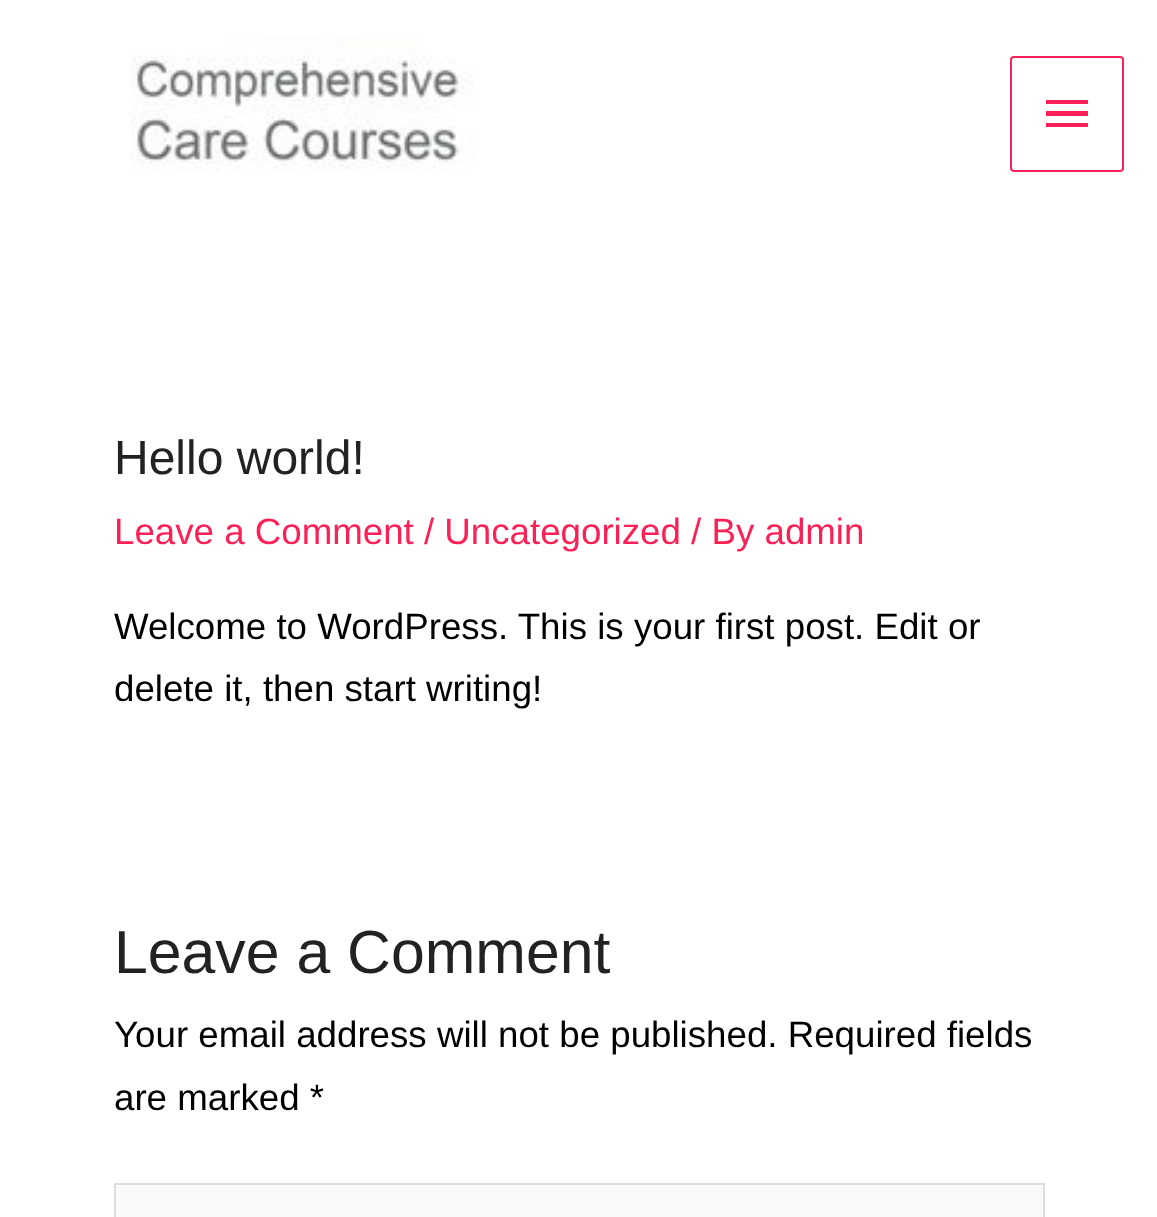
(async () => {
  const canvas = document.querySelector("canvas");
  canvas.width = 1157;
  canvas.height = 1217;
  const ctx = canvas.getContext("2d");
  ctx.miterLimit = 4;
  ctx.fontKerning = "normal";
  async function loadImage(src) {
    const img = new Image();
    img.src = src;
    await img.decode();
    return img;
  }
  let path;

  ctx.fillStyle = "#ffffff";
  ctx.fillRect(0, 0, 1157, 1217);
  ctx.drawImage(await loadImage("img/1.png"), 130, 37, 344, 134);
  ctx.beginPath();
  ctx.roundRect(1011, 57, 112, 114, 3);
  ctx.strokeStyle = "#fb2056";
  ctx.lineWidth = 2;
  ctx.stroke();
  ctx.fillStyle = "#fb2056";
  path = new Path2D("M1046 100H1088V104H1046ZM1046 116V111H1088V116ZM1046 127V123H1088V127Z");
  ctx.fill(path);
  ctx.fillStyle = "#fafafa";
  ctx.beginPath();
  ctx.rect(115, 1184, 929, 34);
  ctx.fill();
  ctx.strokeStyle = "#dddddd";
  ctx.stroke();
  ctx.font = "48px Liberation Sans";
  ctx.fillStyle = "#222222";
  ctx.fillText("Hello world!", 114, 474);
  ctx.font = "36.7px Liberation Sans";
  ctx.fillStyle = "#fb2056";
  ctx.fillText("Leave a Comment / Uncategorized / By admin", 114, 544);
  ctx.fillStyle = "#000000";
  ctx.fillText("Welcome to WordPress. This is your first post. Edit or", 114, 639);
  ctx.fillText("delete it, then start writing!", 114, 701);
  ctx.font = "60.75px Liberation Sans";
  ctx.fillStyle = "#222222";
  ctx.fillText("Leave a Comment", 114, 973);
  ctx.font = "36.7px Liberation Sans";
  ctx.fillStyle = "#000000";
  ctx.fillText("Your email address will not be published. Required fields", 114, 1047);
  ctx.fillText("are marked *", 114, 1110);
})();
